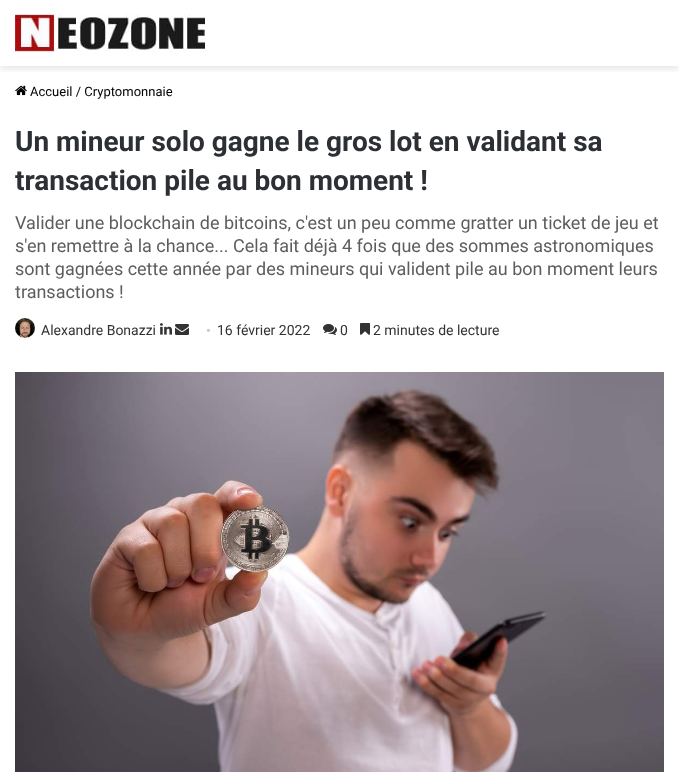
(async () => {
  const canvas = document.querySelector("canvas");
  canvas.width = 679;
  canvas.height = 772;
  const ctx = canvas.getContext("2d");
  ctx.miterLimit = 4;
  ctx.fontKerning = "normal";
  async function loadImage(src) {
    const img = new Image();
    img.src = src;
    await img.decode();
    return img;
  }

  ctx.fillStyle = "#ffffff";
  ctx.fillRect(0, 0, 679, 772);
  ctx.save();
  ctx.beginPath();
  ctx.rect(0, 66, 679, 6);
  ctx.clip();
  ctx.fillStyle = "rgba(0, 0, 0, 0.1)";
  ctx.filter = "blur(3.5px)";
  ctx.beginPath();
  ctx.rect(0, 3, 679, 66);
  ctx.fill();
  ctx.filter = "none";
  ctx.restore();
  ctx.drawImage(await loadImage("img/1.png"), 15, 14, 190, 38);
  ctx.drawImage(await loadImage("img/2.png"), 15, 85, 12, 11);
  ctx.drawImage(await loadImage("img/3.png"), 15, 318, 20, 20);
  ctx.drawImage(await loadImage("img/4.png"), 160, 323, 12, 12);
  ctx.drawImage(await loadImage("img/5.png"), 175, 324, 14, 11);
  ctx.drawImage(await loadImage("img/6.png"), 323, 324, 14, 11);
  ctx.drawImage(await loadImage("img/7.png"), 360, 323, 10, 12);
  ctx.drawImage(await loadImage("img/8.png"), 15, 372, 649, 400);
  ctx.font = "13px Roboto";
  ctx.fillStyle = "#000000";
  ctx.fillText("Accueil / Cryptomonnaie", 30, 96);
  ctx.font = "bold 28px Roboto";
  ctx.fillStyle = "#2c2f34";
  ctx.fillText("Un mineur solo gagne le gros lot en validant sa", 15, 151);
  ctx.fillText("transaction pile au bon moment !", 15, 190);
  ctx.font = "18px Roboto";
  ctx.fillStyle = "#5d5d5d";
  for (const [text, x, y] of [
    ["Valider une blockchain de bitcoins, c'est un peu comme gratter un ticket de jeu et", 15, 229],
    ["s'en remettre à la chance... Cela fait déjà 4 fois que des sommes astronomiques", 15, 252],
    ["sont gagnées cette année par des mineurs qui valident pile au bon moment leurs", 15, 275],
    ["transactions !", 15, 298],
  ]) {
    ctx.fillText(text, x, y);
  }
  ctx.font = "14px Roboto";
  ctx.fillStyle = "#333333";
  ctx.fillText("Alexandre Bonazzi", 41, 335);
  ctx.font = "14px Liberation Serif";
  ctx.fillStyle = "#cccccc";
  ctx.fillText("•", 206, 335);
  ctx.font = "14px Roboto";
  ctx.fillStyle = "#333333";
  for (const [text, x, y] of [
    ["16 février 2022", 217, 335],
    ["0", 340, 335],
    ["2 minutes de lecture", 373, 335],
  ]) {
    ctx.fillText(text, x, y);
  }
})();
